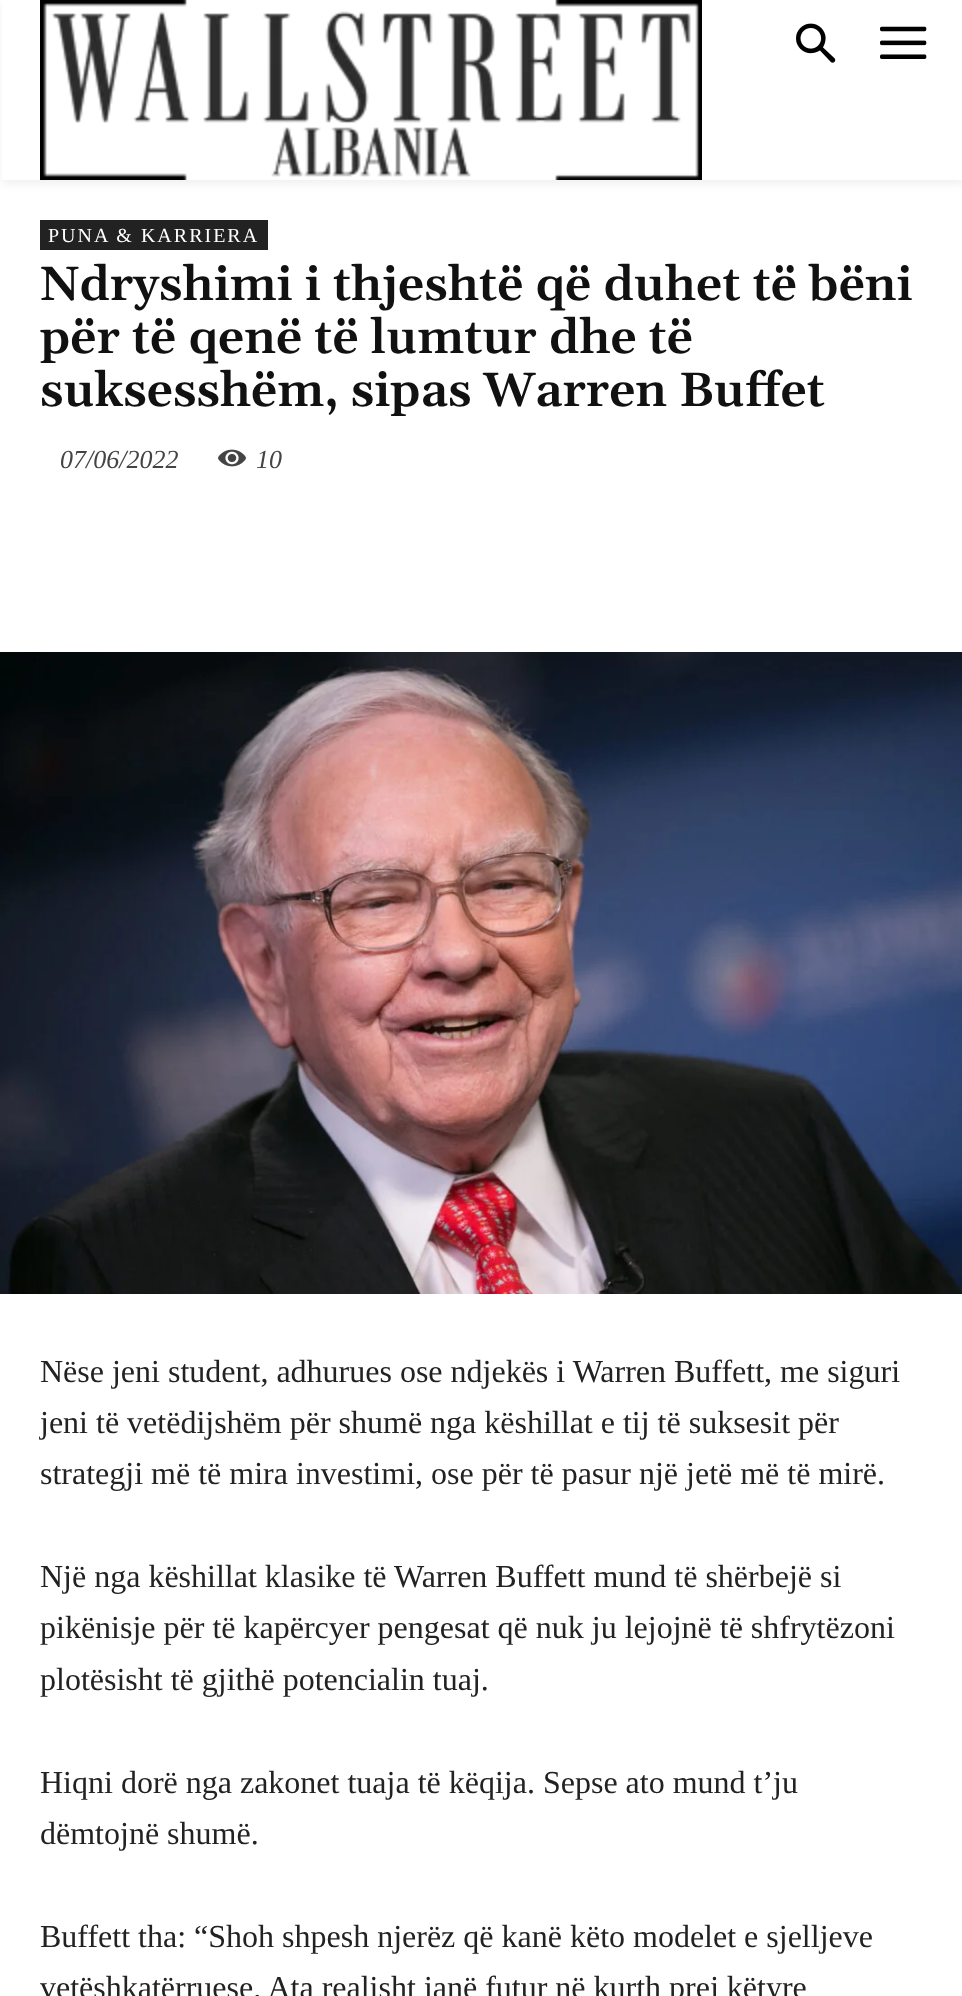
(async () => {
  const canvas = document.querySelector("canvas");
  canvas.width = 962;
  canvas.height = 1996;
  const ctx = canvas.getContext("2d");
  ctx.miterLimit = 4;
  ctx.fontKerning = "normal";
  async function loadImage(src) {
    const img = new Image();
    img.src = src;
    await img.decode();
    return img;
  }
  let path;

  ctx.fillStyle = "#ffffff";
  ctx.fillRect(0, 0, 962, 1996);
  ctx.drawImage(await loadImage("img/1.png"), 40, 0, 662, 180);
  ctx.drawImage(await loadImage("img/2.png"), 796, 23, 40, 40);
  ctx.drawImage(await loadImage("img/3.png"), 880, 26, 47, 33);
  ctx.save();
  path = new Path2D("M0 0H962V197H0ZM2 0H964V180H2Z");
  ctx.clip(path, "evenodd");
  ctx.fillStyle = "rgba(0, 0, 0, 0.06)";
  ctx.filter = "blur(4px)";
  ctx.beginPath();
  ctx.rect(2, 4, 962, 180);
  ctx.fill();
  ctx.filter = "none";
  ctx.restore();
  ctx.fillStyle = "#222222";
  ctx.fillRect(40, 220, 228, 30);
  ctx.drawImage(await loadImage("img/4.png"), 218, 449, 28, 18);
  ctx.drawImage(await loadImage("img/5.png"), 0, 652, 962, 642);
  ctx.letterSpacing = "2px";
  ctx.font = "20px Liberation Serif";
  ctx.fillStyle = "#ffffff";
  ctx.fillText("PUNA & KARRIERA", 48, 242);
  ctx.letterSpacing = "0px";
  ctx.font = "600 48px Gelasio";
  ctx.fillStyle = "#111111";
  for (const [text, x, y] of [
    ["Ndryshimi i thjeshtë që duhet të bëni", 40, 300],
    ["për të qenë të lumtur dhe të", 40, 353],
    ["suksesshëm, sipas Warren Buffet", 40, 406],
  ]) {
    ctx.fillText(text, x, y);
  }
  ctx.font = "italic 26px Liberation Serif";
  ctx.fillStyle = "#444444";
  ctx.fillText("07/06/2022", 60, 468);
  ctx.fillText("10", 256, 468);
  ctx.font = "32px Liberation Serif";
  ctx.fillStyle = "#222222";
  for (const [text, x, y] of [
    ["Nëse jeni student, adhurues ose ndjekës i Warren Buffett, me siguri", 40, 1382],
    ["jeni të vetëdijshëm për shumë nga këshillat e tij të suksesit për", 40, 1433],
    ["strategji më të mira investimi, ose për të pasur një jetë më të mirë.", 40, 1484],
    ["Një nga këshillat klasike të Warren Buffett mund të shërbejë si", 40, 1587],
    ["pikënisje për të kapërcyer pengesat që nuk ju lejojnë të shfrytëzoni", 40, 1638],
    ["plotësisht të gjithë potencialin tuaj.", 40, 1690],
    ["Hiqni dorë nga zakonet tuaja të këqija. Sepse ato mund t’ju", 40, 1793],
    ["dëmtojnë shumë.", 40, 1844],
    ["Buffett tha: “Shoh shpesh njerëz që kanë këto modelet e sjelljeve", 40, 1947],
    ["vetëshkatërruese. Ata realisht janë futur në kurth prej këtyre", 40, 1998],
  ]) {
    ctx.fillText(text, x, y);
  }
})();
